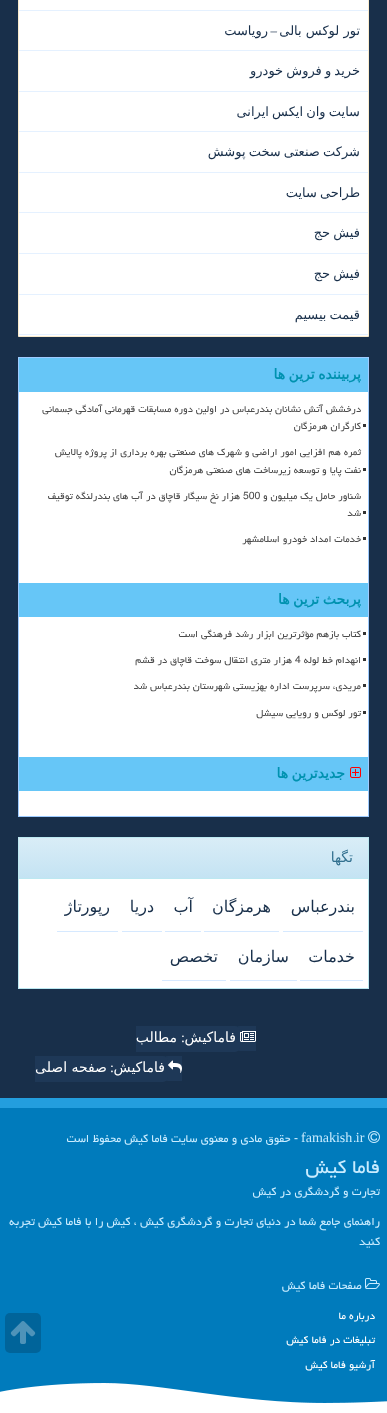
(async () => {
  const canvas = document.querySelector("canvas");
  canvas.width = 387;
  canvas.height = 1413;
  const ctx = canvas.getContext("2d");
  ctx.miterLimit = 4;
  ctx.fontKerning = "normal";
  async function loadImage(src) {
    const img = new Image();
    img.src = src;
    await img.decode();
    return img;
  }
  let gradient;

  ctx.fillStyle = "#182f4a";
  ctx.fillRect(0, 0, 387, 1413);
  ctx.fillStyle = "#ffffff";
  ctx.beginPath();
  ctx.rect(18.5, -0.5, 350, 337);
  ctx.fill();
  ctx.strokeStyle = "#faebcc";
  ctx.stroke();
  for (const [x, y, w, h, color] of [
    [19, 10, 349, 1, "#e5f1ff"],
    [19, 50, 349, 1, "#e5f1ff"],
    [19, 91, 349, 1, "#e5f1ff"],
    [19, 131, 349, 1, "#e5f1ff"],
    [19, 172, 349, 1, "#e5f1ff"],
    [19, 212, 349, 1, "#e5f1ff"],
    [19, 253, 349, 1, "#e5f1ff"],
    [19, 294, 349, 1, "#e5f1ff"],
    [19, 334, 349, 1, "#e5f1ff"],
    [19, 392, 349, 424, "#ffffff"],
  ]) {
    ctx.fillStyle = color;
    ctx.fillRect(x, y, w, h);
  }
  ctx.strokeStyle = "#9ecbff";
  ctx.strokeRect(18.5, 357.5, 350, 459);
  for (const [x, y, w, h, color] of [
    [19, 358, 349, 34, "#66c6f7"],
    [363, 424, 3, 3, "#333333"],
    [363, 468, 3, 3, "#333333"],
    [363, 511, 3, 3, "#333333"],
    [363, 537, 3, 3, "#333333"],
    [19, 583, 349, 34, "#66c6f7"],
    [363, 632, 3, 3, "#333333"],
    [363, 658, 3, 3, "#333333"],
    [363, 684, 3, 3, "#333333"],
    [363, 711, 3, 3, "#333333"],
    [19, 757, 349, 34, "#66c6f7"],
  ]) {
    ctx.fillStyle = color;
    ctx.fillRect(x, y, w, h);
  }
  ctx.drawImage(await loadImage("img/1.png"), 350, 767, 11, 11);
  ctx.fillStyle = "#ffffff";
  ctx.fillRect(19, 879, 349, 109);
  ctx.strokeStyle = "#bce8f1";
  ctx.strokeRect(18.5, 837.5, 350, 151);
  gradient = ctx.createLinearGradient(194, 838, 194, 878);
  gradient.addColorStop(0, "#d9edf7");
  gradient.addColorStop(1, "#c4e3f3");
  ctx.fillStyle = gradient;
  ctx.fillRect(19, 838, 349, 40);
  for (const [x, y, w, h, color] of [
    [19, 878, 349, 1, "#bce8f1"],
    [283, 931, 80, 1, "#d6e9ff"],
    [204, 931, 75, 1, "#d6e9ff"],
    [165, 931, 36, 1, "#d6e9ff"],
    [122, 931, 40, 1, "#d6e9ff"],
    [57, 931, 61, 1, "#d6e9ff"],
    [300, 980, 63, 1, "#d6e9ff"],
    [230, 980, 67, 1, "#d6e9ff"],
    [162, 980, 64, 1, "#d6e9ff"],
  ]) {
    ctx.fillStyle = color;
    ctx.fillRect(x, y, w, h);
  }
  ctx.fillStyle = "#1e3857";
  ctx.beginPath();
  ctx.roundRect(235, 1026, 21, 25, [5, 0, 0, 5]);
  ctx.fill();
  ctx.beginPath();
  ctx.roundRect(136, 1026, 104, 26, [0, 5, 5, 0]);
  ctx.fill();
  ctx.drawImage(await loadImage("img/2.png"), 240, 1031, 16, 11);
  ctx.beginPath();
  ctx.roundRect(163, 1056, 19, 25, [5, 0, 0, 5]);
  ctx.fill();
  ctx.beginPath();
  ctx.roundRect(35, 1056, 133, 26, [0, 5, 5, 0]);
  ctx.fill();
  ctx.drawImage(await loadImage("img/3.png"), 168, 1060, 14, 13);
  ctx.fillStyle = "#007bbc";
  ctx.fillRect(0, 1108, 387, 295);
  ctx.fillStyle = "#00649a";
  ctx.beginPath();
  ctx.roundRect(5, 1313, 36, 40, 5);
  ctx.fill();
  ctx.drawImage(await loadImage("img/4.png"), 10, 1321, 26, 23);
  ctx.fillStyle = "#239ede";
  ctx.fillRect(0, 1098, 387, 10);
  ctx.drawImage(await loadImage("img/5.png"), 368, 1131, 12, 12);
  ctx.drawImage(await loadImage("img/6.png"), 365, 1278, 15, 11);
  ctx.drawImage(await loadImage("img/7.png"), 0, 1383, 387, 30);
  ctx.direction = "rtl";
  ctx.font = "13px DejaVu Sans";
  ctx.fillStyle = "#182f4a";
  ctx.fillText("تور لوکس بالی", 360, 35);
  ctx.font = "13px Liberation Serif";
  ctx.fillText("–", 277, 35);
  ctx.font = "13px DejaVu Sans";
  ctx.fillText("رویاست", 268, 35);
  ctx.wordSpacing = "-1px";
  for (const [text, x, y] of [
    ["خرید و فروش خودرو", 360, 75],
    ["سایت وان ایکس ایرانی", 360, 116],
    ["شرکت صنعتی سخت پوشش", 360, 156],
    ["طراحی سایت", 360, 197],
    ["فیش حج", 360, 237],
    ["فیش حج", 360, 278],
    ["قیمت بیسیم", 360, 319],
  ]) {
    ctx.fillText(text, x, y);
  }
  ctx.font = "bold 14px DejaVu Sans";
  ctx.fillStyle = "#0092b0";
  ctx.fillText("پربیننده ترین ها", 361, 379);
  ctx.wordSpacing = "0px";
  ctx.font = "12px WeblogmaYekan";
  ctx.fillStyle = "#4a4a4a";
  for (const [text, x, y] of [
    ["درخشش آتش نشانان بندرعباس در اولین دوره مسابقات قهرمانی آمادگی جسمانی", 361, 412],
    ["کارگران هرمزگان", 361, 429],
    ["ثمره هم افزایی امور اراضی و شهرک های صنعتی بهره برداری از پروژه پالایش", 361, 455],
    ["نفت پایا و توسعه زیرساخت های صنعتی هرمزگان", 361, 473],
    ["شناور حامل یک میلیون و", 361, 499],
  ]) {
    ctx.fillText(text, x, y);
  }
  ctx.direction = "ltr";
  ctx.fillText("500", 243, 499);
  ctx.direction = "rtl";
  for (const [text, x, y] of [
    ["هزار نخ سیگار قاچاق در آب های بندرلنگه توقیف", 240, 499],
    ["شد", 361, 516],
    ["خدمات امداد خودرو اسلامشهر", 361, 542],
  ]) {
    ctx.fillText(text, x, y);
  }
  ctx.wordSpacing = "-1px";
  ctx.font = "bold 14px DejaVu Sans";
  ctx.fillStyle = "#0092b0";
  ctx.fillText("پربحث ترین ها", 361, 604);
  ctx.wordSpacing = "0px";
  ctx.font = "12px WeblogmaYekan";
  ctx.fillStyle = "#4a4a4a";
  ctx.fillText("کتاب بازهم مؤثرترین ابزار رشد فرهنگی است", 361, 637);
  ctx.fillText("انهدام خط لوله", 361, 663);
  ctx.direction = "ltr";
  ctx.fillText("4", 295, 663);
  ctx.direction = "rtl";
  for (const [text, x, y] of [
    ["هزار متری انتقال سوخت قاچاق در قشم", 292, 663],
    ["مریدی، سرپرست اداره بهزیستی شهرستان بندرعباس شد", 361, 689],
    ["تور لوکس و رویایی سیشل", 361, 716],
  ]) {
    ctx.fillText(text, x, y);
  }
  ctx.wordSpacing = "-1px";
  ctx.font = "bold 14px DejaVu Sans";
  ctx.fillStyle = "#0092b0";
  ctx.fillText("جدیدترین ها", 345, 778);
  ctx.wordSpacing = "0px";
  ctx.font = "14px DejaVu Sans";
  ctx.fillStyle = "#31708f";
  ctx.fillText("تگها", 353, 862);
  ctx.font = "16px DejaVu Sans";
  ctx.fillStyle = "#182f4a";
  for (const [text, x, y] of [
    ["بندرعباس", 355, 912],
    ["هرمزگان", 271, 912],
    ["آب", 193, 912],
    ["دریا", 154, 912],
    ["رپورتاژ", 110, 912],
    ["خدمات", 355, 962],
    ["سازمان", 289, 962],
    ["تخصص", 218, 962],
  ]) {
    ctx.fillText(text, x, y);
  }
  ctx.font = "14px DejaVu Sans";
  ctx.fillStyle = "#ffffff";
  ctx.fillText("فاماکیش", 236, 1042);
  ctx.font = "14px Liberation Serif";
  ctx.fillText(":", 185, 1042);
  ctx.font = "14px DejaVu Sans";
  ctx.fillText("مطالب", 177, 1042);
  ctx.fillText("فاماکیش", 165, 1072);
  ctx.font = "14px Liberation Serif";
  ctx.fillText(":", 114, 1072);
  ctx.font = "14px DejaVu Sans";
  ctx.fillText("صفحه اصلی", 107, 1072);
  ctx.direction = "ltr";
  ctx.font = "14px Liberation Serif";
  ctx.fillStyle = "#c9ecff";
  ctx.fillText("famakish ir", 301, 1142);
  ctx.direction = "rtl";
  ctx.font = "14px WeblogmaYekan";
  ctx.fillText("- حقوق مادی و معنوی سایت فاما كیش محفوظ است", 298, 1142);
  ctx.direction = "ltr";
  ctx.fillText(".", 353, 1142);
  ctx.direction = "rtl";
  ctx.font = "24px WeblogmaYekan";
  ctx.fillText("فاما كیش", 380, 1173);
  ctx.font = "14px WeblogmaYekan";
  for (const [text, x, y] of [
    ["تجارت و گردشگری در کیش", 380, 1195],
    ["راهنمای جامع شما در دنیای تجارت و گردشگری کیش ، کیش را با فاما کیش تجربه", 380, 1225],
    ["کنید", 380, 1245],
    ["صفحات فاما كیش", 362, 1289],
  ]) {
    ctx.fillText(text, x, y);
  }
  ctx.font = "13px WeblogmaYekan";
  ctx.fillStyle = "#ffffff";
  for (const [text, x, y] of [
    ["درباره ما", 375, 1319],
    ["تبلیغات در فاما كیش", 375, 1343],
    ["آرشیو فاما كیش", 375, 1368],
  ]) {
    ctx.fillText(text, x, y);
  }
})();
